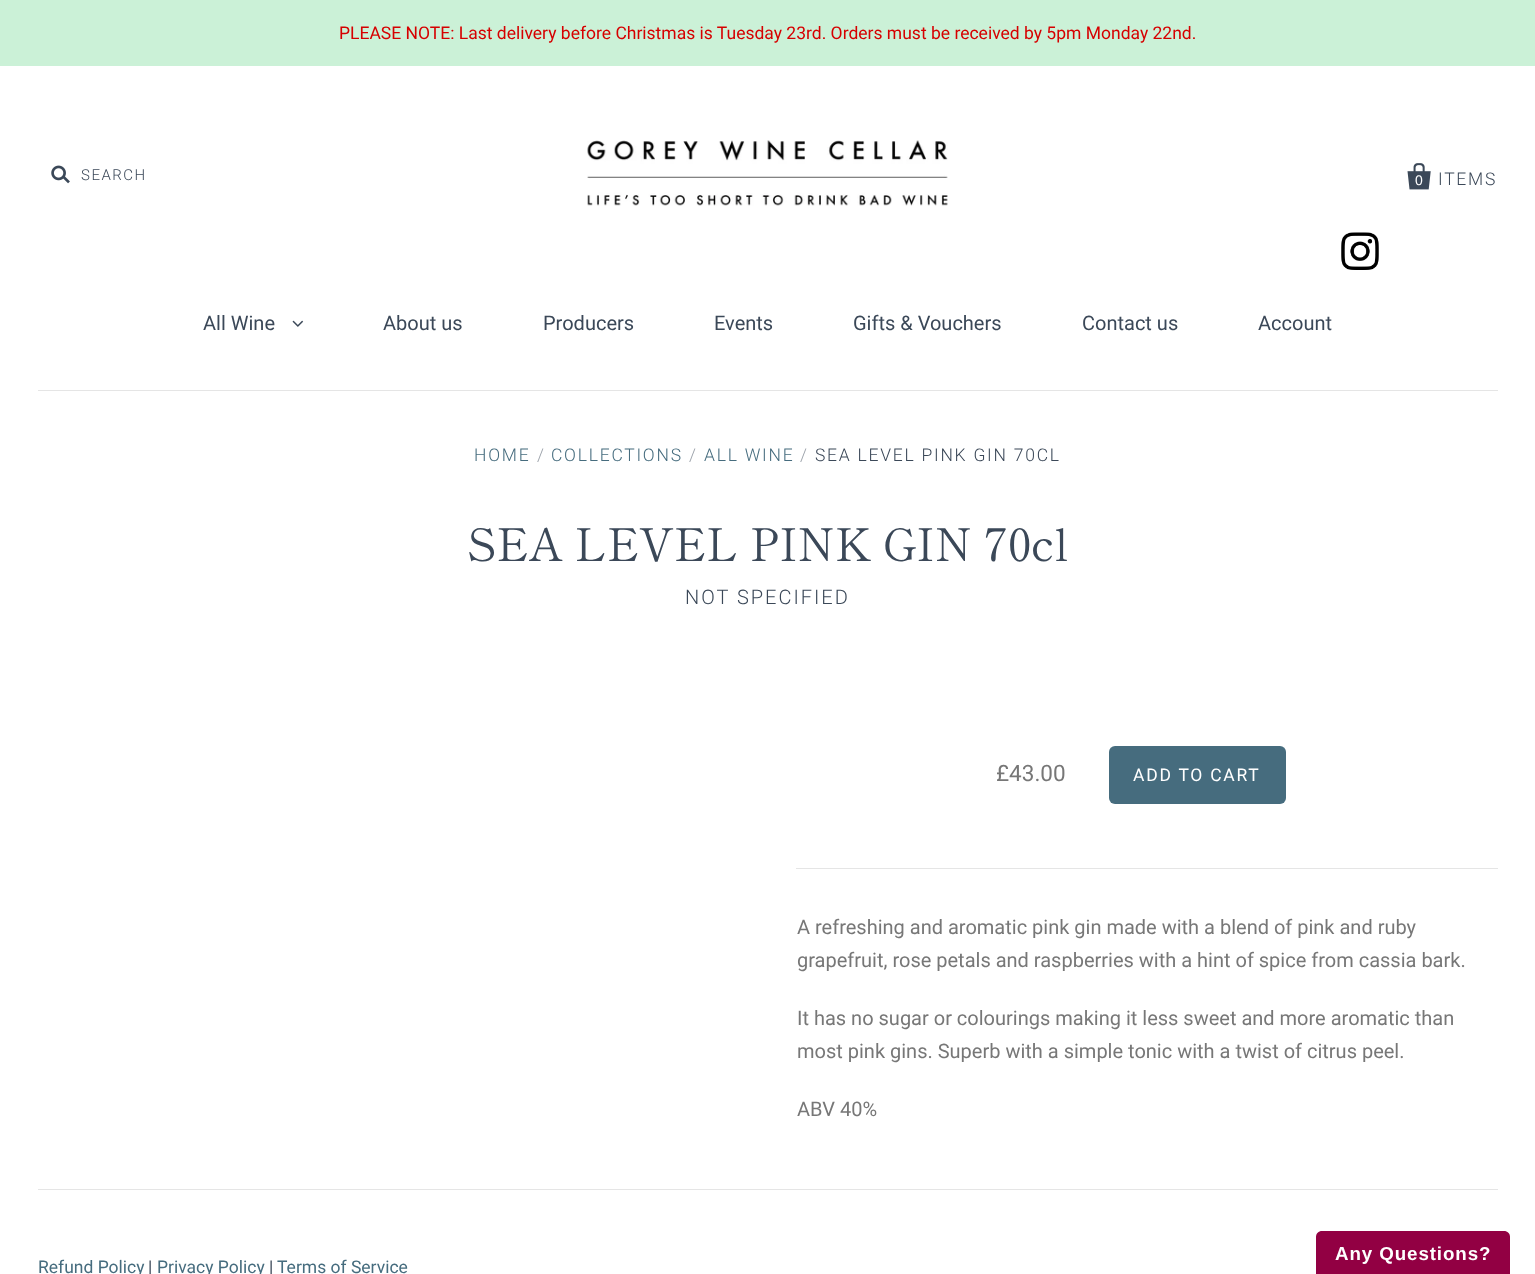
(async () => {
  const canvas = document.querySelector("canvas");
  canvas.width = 1535;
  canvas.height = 1274;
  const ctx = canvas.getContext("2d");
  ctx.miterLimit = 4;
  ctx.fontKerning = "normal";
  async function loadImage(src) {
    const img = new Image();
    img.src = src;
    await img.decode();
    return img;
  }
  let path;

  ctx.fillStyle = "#ffffff";
  ctx.fillRect(0, 0, 1535, 1274);
  ctx.fillStyle = "#cbf1d7";
  ctx.fillRect(0, 0, 1535, 66);
  ctx.fillStyle = "#e5e5e5";
  ctx.fillRect(38, 390, 1460, 1);
  ctx.drawImage(await loadImage("img/1.png"), 51, 165, 19, 19);
  ctx.drawImage(await loadImage("img/2.png"), 587, 140, 361, 66);
  ctx.drawImage(await loadImage("img/3.png"), 1407, 163, 24, 27);
  ctx.drawImage(await loadImage("img/4.png"), 1341, 232, 38, 38);
  ctx.drawImage(await loadImage("img/5.png"), 292, 320, 12, 7);
  ctx.fillStyle = "#466c7e";
  ctx.beginPath();
  ctx.roundRect(1109, 746, 177, 58, 6);
  ctx.fill();
  ctx.fillStyle = "#e5e5e5";
  ctx.fillRect(796, 868, 702, 1);
  ctx.fillStyle = "#920043";
  path = new Path2D("M1322 1231H1504C1507.5 1231 1510 1233.5 1510 1237V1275H1316V1237C1316 1233.5 1318.5 1231 1322 1231Z");
  ctx.fill(path);
  ctx.fillStyle = "#e5e5e5";
  ctx.fillRect(38, 1189, 1460, 1);
  ctx.font = "17.5px Roboto";
  ctx.fillStyle = "#d60000";
  ctx.fillText("PLEASE NOTE: Last delivery before Christmas is Tuesday 23rd. Orders must be received by 5pm Monday 22nd.", 339, 39);
  ctx.letterSpacing = "1.5px";
  ctx.font = "300 15px Roboto";
  ctx.fillStyle = "#3b4858";
  ctx.fillText("SEARCH", 81, 180);
  ctx.letterSpacing = "1.75px";
  ctx.font = "300 17.5px Roboto";
  ctx.fillText("ITEMS", 1438, 185);
  ctx.font = "14px Liberation Sans";
  ctx.fillStyle = "#ffffff";
  ctx.fillText("0", 1415, 185);
  ctx.letterSpacing = "0px";
  ctx.font = "20px Roboto";
  ctx.fillStyle = "#3b4858";
  for (const [text, x, y] of [
    ["All Wine", 203, 330],
    ["About us", 383, 330],
    ["Producers", 543, 330],
    ["Events", 714, 330],
    ["Gifts & Vouchers", 853, 330],
    ["Contact us", 1082, 330],
    ["Account", 1258, 330],
  ]) {
    ctx.fillText(text, x, y);
  }
  ctx.letterSpacing = "1.75px";
  ctx.font = "300 17.5px Roboto";
  ctx.fillStyle = "#466c7e";
  ctx.fillText("HOME", 474, 461);
  ctx.fillStyle = "#9da3ab";
  ctx.fillText("/", 537, 461);
  ctx.fillStyle = "#466c7e";
  ctx.fillText("COLLECTIONS", 551, 461);
  ctx.fillStyle = "#9da3ab";
  ctx.fillText("/", 689, 461);
  ctx.fillStyle = "#466c7e";
  ctx.fillText("ALL WINE", 704, 461);
  ctx.fillStyle = "#9da3ab";
  ctx.fillText("/", 800, 461);
  ctx.fillStyle = "#3b4858";
  ctx.fillText("SEA LEVEL PINK GIN 70CL", 815, 461);
  ctx.letterSpacing = "0px";
  ctx.font = "45px Shippori Mincho";
  ctx.fillText("SEA LEVEL PINK GIN 70cl", 467, 561);
  ctx.letterSpacing = "2px";
  ctx.font = "300 20px Roboto";
  ctx.fillText("NOT SPECIFIED", 685, 604);
  ctx.letterSpacing = "0px";
  ctx.font = "22.5px Roboto";
  ctx.fillStyle = "#777777";
  ctx.fillText("£43.00", 996, 781);
  ctx.letterSpacing = "1.75px";
  ctx.font = "17.5px Roboto";
  ctx.fillStyle = "#ffffff";
  ctx.fillText("ADD TO CART", 1133, 781);
  ctx.letterSpacing = "0px";
  ctx.font = "20px Roboto";
  ctx.fillStyle = "#777777";
  for (const [text, x, y] of [
    ["A refreshing and aromatic pink gin made with a blend of pink and ruby", 797, 934],
    ["grapefruit, rose petals and raspberries with a hint of spice from cassia bark.", 797, 967],
    ["It has no sugar or colourings making it less sweet and more aromatic than", 797, 1025],
    ["most pink gins. Superb with a simple tonic with a twist of citrus peel.", 797, 1058],
    ["ABV 40%", 797, 1116],
  ]) {
    ctx.fillText(text, x, y);
  }
  ctx.letterSpacing = "0.9px";
  ctx.font = "bold 18.75px Liberation Sans";
  ctx.fillStyle = "#ffffff";
  ctx.fillText("Any Questions?", 1335, 1260);
  ctx.letterSpacing = "0px";
  ctx.font = "17.5px Roboto";
  ctx.fillStyle = "#466c7e";
  ctx.fillText("Refund Policy", 38, 1273);
  ctx.fillStyle = "#3b4858";
  ctx.fillText("|", 148, 1273);
  ctx.fillStyle = "#466c7e";
  ctx.fillText("Privacy Policy", 157, 1273);
  ctx.fillStyle = "#3b4858";
  ctx.fillText("|", 269, 1273);
  ctx.fillStyle = "#466c7e";
  ctx.fillText("Terms of Service", 277, 1273);
})();
